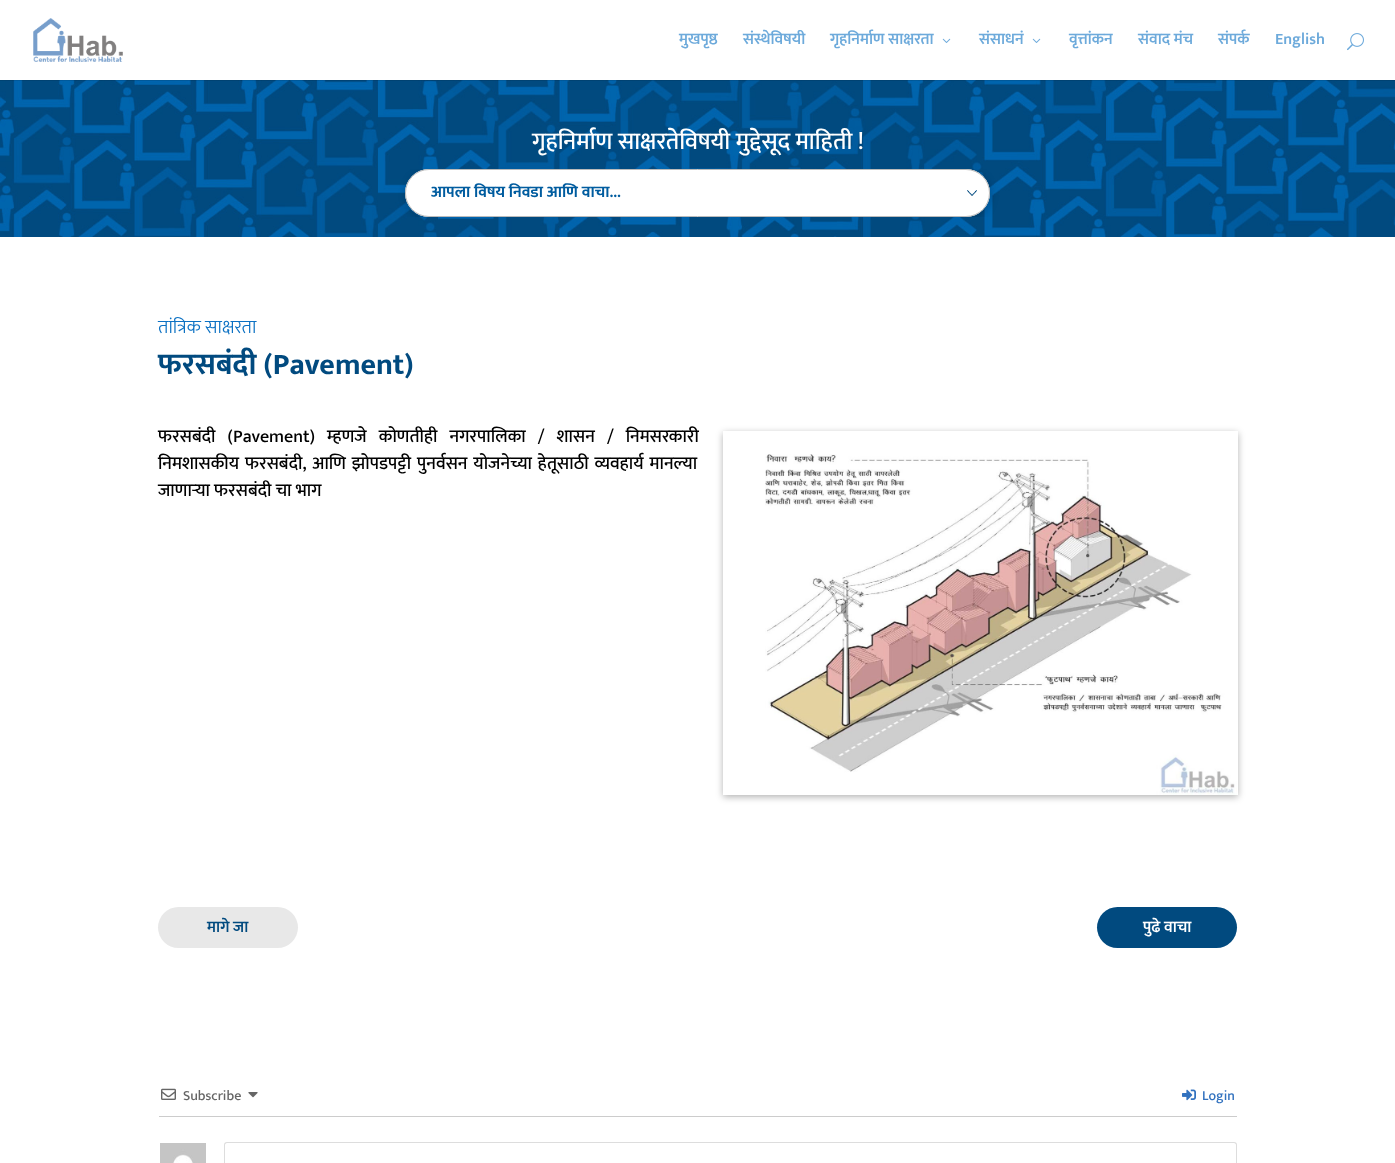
(async () => {
  const canvas = document.querySelector("canvas");
  canvas.width = 1395;
  canvas.height = 1163;
  const ctx = canvas.getContext("2d");
  ctx.miterLimit = 4;
  ctx.fontKerning = "normal";
  async function loadImage(src) {
    const img = new Image();
    img.src = src;
    await img.decode();
    return img;
  }
  let path;

  ctx.fillStyle = "#ffffff";
  ctx.fillRect(0, 0, 1395, 1163);
  ctx.drawImage(await loadImage("img/4.png"), 0, 80, 1395, 157);
  ctx.fillStyle = "rgba(0, 0, 0, 0.1)";
  ctx.fillRect(0, 80, 1395, 1);
  ctx.drawImage(await loadImage("img/1.png"), 33, 18, 90, 44);
  ctx.drawImage(await loadImage("img/2.png"), 942, 38, 9, 5);
  ctx.drawImage(await loadImage("img/2.png"), 1032, 38, 9, 5);
  ctx.drawImage(await loadImage("img/3.png"), 1347, 33, 17, 18);
  ctx.save();
  ctx.beginPath();
  ctx.roundRect(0, 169, 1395, 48, 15);
  ctx.clip();
  ctx.fillStyle = "rgba(0, 0, 0, 0.3)";
  ctx.filter = "blur(5px)";
  ctx.beginPath();
  ctx.roundRect(408, 173, 581, 44, 22);
  ctx.fill();
  ctx.filter = "none";
  ctx.restore();
  ctx.fillStyle = "#ffffff";
  ctx.beginPath();
  ctx.roundRect(405, 169, 585, 48, 24);
  ctx.fill();
  ctx.drawImage(await loadImage("img/5.png"), 967, 190, 10, 6);
  ctx.beginPath();
  ctx.roundRect(405.5, 169.5, 584, 47, 23.5);
  ctx.strokeStyle = "#bbbbbb";
  ctx.stroke();
  ctx.save();
  path = new Path2D("M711 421H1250V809H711ZM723 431H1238V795H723Z");
  ctx.clip(path, "evenodd");
  ctx.fillStyle = "rgba(0, 0, 0, 0.3)";
  ctx.filter = "blur(3.5px)";
  ctx.beginPath();
  ctx.rect(723, 433, 515, 364);
  ctx.fill();
  ctx.filter = "none";
  ctx.restore();
  ctx.drawImage(await loadImage("img/6.png"), 765, 454, 472, 341);
  ctx.fillStyle = "#e8e8e8";
  ctx.beginPath();
  ctx.roundRect(158, 907, 140, 41, 20.5);
  ctx.fill();
  ctx.fillStyle = "#014a7f";
  ctx.beginPath();
  ctx.roundRect(1097, 907, 140, 41, 20.5);
  ctx.fill();
  ctx.fillStyle = "#cccccc";
  ctx.fillRect(159, 1116, 1078, 1);
  ctx.drawImage(await loadImage("img/7.png"), 161, 1088, 15, 12);
  ctx.drawImage(await loadImage("img/8.png"), 248, 1092, 10, 6);
  ctx.drawImage(await loadImage("img/9.png"), 1182, 1089, 14, 12);
  ctx.drawImage(await loadImage("img/10.png"), 160, 1143, 46, 20);
  ctx.fillStyle = "#dddddd";
  path = new Path2D("M227 1142H1234C1236 1142 1237 1143 1237 1145V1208H224V1145C224 1143 225 1142 227 1142ZM227 1143H1234C1235 1143 1236 1144 1236 1145V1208H225V1145C225 1144 226 1143 227 1143Z");
  ctx.fill(path, "evenodd");
  ctx.font = "600 16px Mukta";
  ctx.fillStyle = "#6daadb";
  for (const [text, x, y] of [
    ["मुखपृष्ठ", 679, 44],
    ["संस्थेविषयी", 743, 44],
    ["गृहनिर्माण साक्षरता", 830, 44],
    ["संसाधनं", 979, 44],
    ["वृत्तांकन", 1069, 44],
    ["संवाद मंच", 1138, 44],
    ["संपर्क", 1218, 44],
    ["English", 1275, 44],
  ]) {
    ctx.fillText(text, x, y);
  }
  ctx.font = "500 24px Mukta";
  ctx.fillStyle = "#ffffff";
  ctx.fillText("गृहनिर्माण साक्षरतेविषयी मुद्देसूद माहिती !", 532, 149);
  ctx.font = "bold 16px Mukta";
  ctx.fillStyle = "#005c9f";
  ctx.fillText("आपला विषय निवडा आणि वाचा...", 431, 197);
  ctx.font = "300 19px Mukta";
  ctx.fillStyle = "#0c71c3";
  ctx.fillText("तांत्रिक साक्षरता", 158, 333);
  ctx.font = "bold 30px Mukta";
  ctx.fillStyle = "#014a7f";
  ctx.fillText("फरसबंदी (Pavement)", 158, 374);
  ctx.wordSpacing = "8px";
  ctx.font = "500 18px Mukta";
  ctx.fillStyle = "#000000";
  ctx.fillText("फरसबंदी (Pavement) म्हणजे कोणतीही नगरपालिका / शासन / निमसरकारी", 158, 442);
  ctx.wordSpacing = "1.75px";
  ctx.fillText("निमशासकीय फरसबंदी, आणि झोपडपट्टी पुनर्वसन योजनेच्या हेतूसाठी व्यवहार्य मानल्या", 158, 469);
  ctx.wordSpacing = "0px";
  ctx.fillText("जाणार्‍या फरसबंदी चा भाग", 158, 496);
  ctx.font = "600 16px Mukta";
  ctx.fillStyle = "#014a7f";
  ctx.fillText("मागे जा", 207, 932);
  ctx.fillStyle = "#ffffff";
  ctx.fillText("पुढे वाचा", 1143, 932);
  ctx.font = "500 14px Mukta";
  ctx.fillStyle = "#666666";
  ctx.fillText("Subscribe", 183, 1100);
  ctx.fillStyle = "#3272bf";
  ctx.fillText("Login", 1202, 1100);
})();
